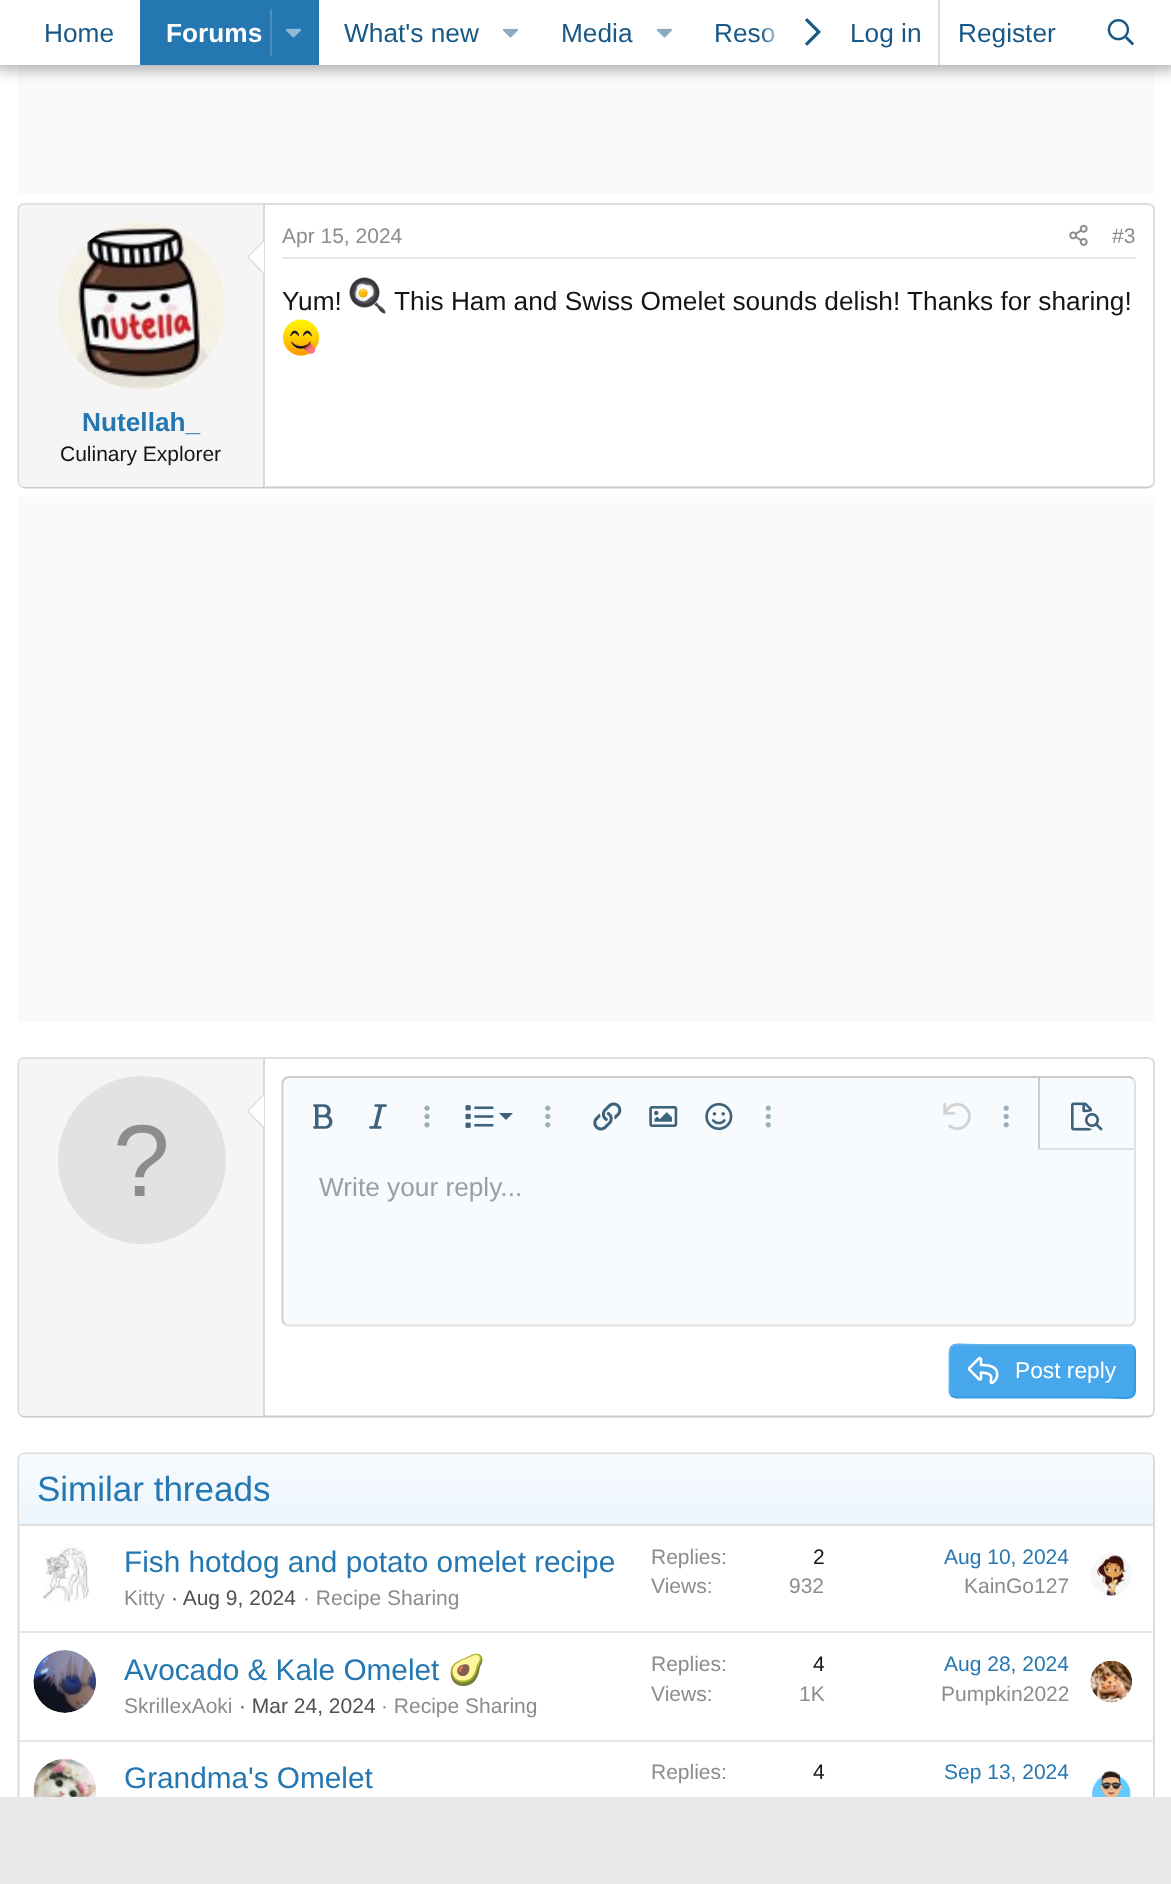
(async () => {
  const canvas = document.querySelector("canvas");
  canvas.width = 1171;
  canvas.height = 1884;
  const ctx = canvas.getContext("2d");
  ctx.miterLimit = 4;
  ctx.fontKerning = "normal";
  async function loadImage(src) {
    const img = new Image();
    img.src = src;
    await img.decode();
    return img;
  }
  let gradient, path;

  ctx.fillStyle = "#ffffff";
  ctx.fillRect(0, 0, 1171, 1884);
  ctx.fillStyle = "#fafafa";
  ctx.fillRect(18, 65, 1137, 129);
  ctx.fillStyle = "rgba(0, 0, 0, 0.3)";
  ctx.filter = "blur(7px)";
  ctx.beginPath();
  ctx.rect(-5, -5, 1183, 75);
  ctx.fill();
  ctx.filter = "none";
  for (const [x, y, w, h, color] of [
    [0, 0, 1171, 65, "#ffffff"],
    [140, 0, 179, 65, "#2577b1"],
    [270, 9, 2, 47, "#4b8fbf"],
  ]) {
    ctx.fillStyle = color;
    ctx.fillRect(x, y, w, h);
  }
  ctx.drawImage(await loadImage("img/1.png"), 285, 28, 16, 10);
  ctx.drawImage(await loadImage("img/2.png"), 502, 28, 16, 10);
  ctx.drawImage(await loadImage("img/2.png"), 656, 28, 16, 10);
  ctx.drawImage(await loadImage("img/3.png"), 805, 18, 16, 28);
  ctx.fillStyle = "#dcdcdc";
  ctx.fillRect(938, 0, 2, 65);
  ctx.drawImage(await loadImage("img/4.png"), 1107, 19, 27, 27);
  path = new Path2D("M20 205.5C21.5 204.5 23 204 24.5 204H1148C1149.5 204 1151 204.5 1152.5 205.5");
  ctx.strokeStyle = "#dfdfdf";
  ctx.lineWidth = 1.8;
  ctx.stroke(path);
  path = new Path2D("M1152.5 205.5C1153.5 207 1154 208.5 1154 210V481C1154 483 1153.5 484.5 1152.5 485.5");
  ctx.strokeStyle = "#d8d8d8";
  ctx.stroke(path);
  path = new Path2D("M1152.5 485.5C1151 486.5 1149.5 487.5 1148 487.5H24.5C23 487.5 21.5 486.5 20 485.5");
  ctx.strokeStyle = "#cbcbcb";
  ctx.stroke(path);
  path = new Path2D("M20 485.5C19 484.5 18.5 483 18.5 481V210C18.5 208.5 19 207 20 205.5");
  ctx.strokeStyle = "#d8d8d8";
  ctx.stroke(path);
  ctx.fillStyle = "#e7e7e7";
  ctx.fillRect(282, 257, 854, 2);
  ctx.drawImage(await loadImage("img/5.png"), 1069, 224, 19, 22);
  ctx.drawImage(await loadImage("img/6.png"), 349, 277, 37, 37);
  ctx.drawImage(await loadImage("img/7.png"), 283, 319, 36, 37);
  ctx.fillStyle = "#f5f5f5";
  ctx.beginPath();
  ctx.roundRect(19, 205, 245, 282, [5, 0, 0, 5]);
  ctx.fill();
  ctx.fillStyle = "#d8d8d8";
  ctx.fillRect(263, 205, 2, 282);
  ctx.fillStyle = "#fefefe";
  ctx.beginPath();
  ctx.arc(142, 306, 84, 0, Math.PI * 2);
  ctx.fill();
  ctx.drawImage(await loadImage("img/8.png"), 58, 222, 168, 168);
  ctx.fillStyle = "#d8d8d8";
  path = new Path2D("M264 240V275L247 257Z");
  ctx.fill(path);
  ctx.fillStyle = "#fefefe";
  path = new Path2D("M264 241.5V273L248.5 257Z");
  ctx.fill(path);
  ctx.fillStyle = "#fafafa";
  ctx.fillRect(18, 497, 1137, 525);
  path = new Path2D("M20 1059.5C21.5 1058.5 23 1058 24.5 1058H1148C1149.5 1058 1151 1058.5 1152.5 1059.5");
  ctx.strokeStyle = "#dfdfdf";
  ctx.stroke(path);
  path = new Path2D("M1152.5 1059.5C1153.5 1061 1154 1062.5 1154 1064V1410.5C1154 1412 1153.5 1413.5 1152.5 1415");
  ctx.strokeStyle = "#d8d8d8";
  ctx.stroke(path);
  path = new Path2D("M1152.5 1415C1151 1416 1149.5 1416.5 1148 1416.5H24.5C23 1416.5 21.5 1416 20 1415");
  ctx.strokeStyle = "#cbcbcb";
  ctx.stroke(path);
  path = new Path2D("M20 1415C19 1413.5 18.5 1412 18.5 1410.5V1064C18.5 1062.5 19 1061 20 1059.5");
  ctx.strokeStyle = "#d8d8d8";
  ctx.stroke(path);
  ctx.fillStyle = "#f5f5f5";
  ctx.beginPath();
  ctx.roundRect(19, 1059, 245, 357, [5, 0, 0, 5]);
  ctx.fill();
  ctx.fillStyle = "#d8d8d8";
  ctx.fillRect(263, 1059, 2, 357);
  path = new Path2D("M264 1094V1129L247 1111Z");
  ctx.fill(path);
  ctx.fillStyle = "#fefefe";
  path = new Path2D("M264 1095.5V1127L248.5 1111Z");
  ctx.fill(path);
  ctx.fillStyle = "#e2e2e2";
  ctx.beginPath();
  ctx.arc(142, 1160, 84, 0, Math.PI * 2);
  ctx.fill();
  ctx.fillStyle = "#f7fbfe";
  ctx.beginPath();
  ctx.roundRect(284, 1078, 850, 247, 5);
  ctx.fill();
  path = new Path2D("M1133 1079C1134 1080 1135 1081.5 1135 1083V1319.5C1135 1321 1134 1322.5 1133 1324C1132 1325 1130.5 1325.5 1129 1325.5H289C287 1325.5 285.5 1325 284.5 1324");
  ctx.strokeStyle = "#dfdfdf";
  ctx.stroke(path);
  path = new Path2D("M284.5 1324C283.5 1322.5 282.5 1321 282.5 1319.5V1083C282.5 1081.5 283.5 1080 284.5 1079C285.5 1078 287 1077 289 1077H1129C1130.5 1077 1132 1078 1133 1079");
  ctx.strokeStyle = "#cbcbcb";
  ctx.stroke(path);
  ctx.drawImage(await loadImage("img/9.png"), 313, 1104, 20, 25);
  ctx.drawImage(await loadImage("img/10.png"), 369, 1104, 18, 25);
  ctx.drawImage(await loadImage("img/11.png"), 424, 1105, 6, 23);
  ctx.drawImage(await loadImage("img/12.png"), 465, 1105, 29, 23);
  ctx.fillStyle = "#3e617a";
  path = new Path2D("M499 1113H513L506 1120Z");
  ctx.fill(path);
  ctx.drawImage(await loadImage("img/13.png"), 545, 1105, 6, 23);
  ctx.drawImage(await loadImage("img/14.png"), 593, 1102, 29, 29);
  ctx.drawImage(await loadImage("img/15.png"), 649, 1106, 29, 21);
  ctx.drawImage(await loadImage("img/16.png"), 705, 1102, 28, 29);
  ctx.drawImage(await loadImage("img/17.png"), 765, 1105, 6, 23);
  ctx.drawImage(await loadImage("img/18.png"), 943, 1103, 28, 27);
  ctx.drawImage(await loadImage("img/17.png"), 1003, 1105, 6, 23);
  ctx.fillStyle = "#dfdfdf";
  path = new Path2D("M1134 1150H1038L1040 1148H1134Z");
  ctx.fill(path);
  ctx.fillStyle = "#cbcbcb";
  path = new Path2D("M1038 1078H1040V1148L1038 1150Z");
  ctx.fill(path);
  ctx.drawImage(await loadImage("img/19.png"), 1071, 1102, 32, 29);
  ctx.fillStyle = "#47a7eb";
  ctx.beginPath();
  ctx.roundRect(949, 1344, 187, 54, 7);
  ctx.fill();
  path = new Path2D("M1133 1346.5C1136 1349.5 1135 1354.5 1135 1357.5V1371C1135 1404.5 1138.5 1397.5 1100 1397.5H955.5C954 1397.5 952.5 1396.5 951 1395.5");
  ctx.strokeStyle = "#309ce8";
  ctx.stroke(path);
  path = new Path2D("M951 1395.5C948.5 1393 949.5 1388 949.5 1384.5V1371C949.5 1338 946 1345 984.5 1345H1129C1130.5 1345 1132 1345.5 1133 1346.5");
  ctx.strokeStyle = "#5eb2ed";
  ctx.stroke(path);
  ctx.drawImage(await loadImage("img/20.png"), 967, 1356, 32, 29);
  path = new Path2D("M20 1455C21.5 1454 23 1453.5 24.5 1453.5H1148C1149.5 1453.5 1151 1454 1152.5 1455");
  ctx.strokeStyle = "#dfdfdf";
  ctx.stroke(path);
  path = new Path2D("M1152.5 1455C1153.5 1456.5 1154 1458 1154 1459.5V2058C1154 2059.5 1153.5 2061 1152.5 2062.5");
  ctx.strokeStyle = "#d8d8d8";
  ctx.stroke(path);
  path = new Path2D("M20 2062.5C19 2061 18.5 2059.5 18.5 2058V1459.5C18.5 1458 19 1456.5 20 1455");
  ctx.stroke(path);
  gradient = ctx.createLinearGradient(586, 1524, 586, 1454);
  gradient.addColorStop(0, "#edf6fd");
  gradient.addColorStop(1, "#f6fafe");
  ctx.fillStyle = gradient;
  ctx.beginPath();
  ctx.roundRect(19, 1454, 1134, 70, [5, 5, 0, 0]);
  ctx.fill();
  ctx.fillStyle = "#dfdfdf";
  ctx.fillRect(19, 1524, 1134, 2);
  ctx.drawImage(await loadImage("img/21.png"), 42, 1544, 47, 58);
  ctx.drawImage(await loadImage("img/22.png"), 1091, 1554, 41, 42);
  ctx.fillStyle = "#e7e7e7";
  ctx.fillRect(19, 1631, 1134, 2);
  ctx.drawImage(await loadImage("img/23.png"), 33, 1650, 63, 63);
  ctx.drawImage(await loadImage("img/24.png"), 1090, 1660, 42, 43);
  ctx.fillRect(19, 1740, 1134, 2);
  ctx.drawImage(await loadImage("img/25.png"), 33, 1758, 63, 39);
  ctx.drawImage(await loadImage("img/26.png"), 1092, 1770, 39, 27);
  ctx.fillStyle = "#e8e9eb";
  ctx.fillRect(0, 1797, 1171, 87);
  ctx.font = "26.25px Liberation Sans";
  ctx.fillStyle = "#185886";
  ctx.fillText("Home", 44, 42);
  ctx.font = "bold 26.25px Liberation Sans";
  ctx.fillStyle = "#ffffff";
  ctx.fillText("Forums", 166, 42);
  ctx.font = "26.25px Liberation Sans";
  ctx.fillStyle = "#185886";
  for (const [text, x, y] of [
    ["What's new", 344, 42],
    ["Media", 561, 42],
    ["Reso", 714, 42],
  ]) {
    ctx.fillText(text, x, y);
  }
  gradient = ctx.createLinearGradient(761, 32, 831, 32);
  gradient.addColorStop(0, "rgba(255, 255, 255, 0)");
  gradient.addColorStop(0.33, "#ffffff");
  ctx.fillStyle = gradient;
  ctx.fillRect(762, 27, 13, 16);
  ctx.fillStyle = "#185886";
  ctx.fillText("Log in", 850, 42);
  ctx.fillText("Register", 958, 42);
  ctx.font = "21px Liberation Sans";
  ctx.fillStyle = "#8c8c8c";
  ctx.fillText("Apr 15, 2024", 282, 243);
  ctx.fillText("#3", 1112, 243);
  ctx.font = "26.25px Liberation Sans";
  ctx.fillStyle = "#141414";
  ctx.fillText("Yum!", 282, 310);
  ctx.fillText("This Ham and Swiss Omelet sounds delish! Thanks for sharing!", 394, 310);
  ctx.font = "bold 26.25px Liberation Sans";
  ctx.fillStyle = "#2577b1";
  ctx.fillText("Nutellah_", 82, 431);
  ctx.font = "21px Liberation Sans";
  ctx.fillStyle = "#141414";
  ctx.fillText("Culinary Explorer", 60, 461);
  ctx.font = "102px Liberation Sans";
  ctx.fillStyle = "#8c8c8c";
  ctx.fillText("?", 113, 1196);
  ctx.font = "26.25px Liberation Sans";
  ctx.fillStyle = "#9c9fa0";
  ctx.fillText("Write your reply...", 319, 1196);
  ctx.font = "22.75px Liberation Sans";
  ctx.fillStyle = "#ffffff";
  ctx.fillText("Post reply", 1015, 1378);
  ctx.font = "35px Liberation Sans";
  ctx.fillStyle = "#2577b1";
  ctx.fillText("Similar threads", 37, 1501);
  ctx.font = "29.75px Liberation Sans";
  ctx.fillText("Fish hotdog and potato omelet recipe", 124, 1572);
  ctx.font = "21px Liberation Sans";
  ctx.fillStyle = "#8c8c8c";
  ctx.fillText("Kitty", 124, 1605);
  ctx.fillStyle = "#505050";
  ctx.fillText("· Aug 9, 2024", 171, 1605);
  ctx.fillStyle = "#8c8c8c";
  ctx.fillText("· Recipe Sharing", 303, 1605);
  ctx.fillText("Replies:", 651, 1564);
  ctx.fillStyle = "#141414";
  ctx.fillText("2", 813, 1564);
  ctx.fillStyle = "#8c8c8c";
  ctx.fillText("Views:", 651, 1593);
  ctx.fillText("932", 789, 1593);
  ctx.fillStyle = "#2577b1";
  ctx.fillText("Aug 10, 2024", 944, 1564);
  ctx.fillStyle = "#8c8c8c";
  ctx.fillText("KainGo127", 964, 1593);
  ctx.font = "29.75px Liberation Sans";
  ctx.fillStyle = "#2577b1";
  ctx.fillText("Avocado & Kale Omelet", 124, 1680);
  ctx.font = "29.75px Noto Color Emoji";
  ctx.fillText("🥑", 448, 1680);
  ctx.font = "21px Liberation Sans";
  ctx.fillStyle = "#8c8c8c";
  ctx.fillText("SkrillexAoki", 124, 1713);
  ctx.fillStyle = "#505050";
  ctx.fillText("· Mar 24, 2024", 239, 1713);
  ctx.fillStyle = "#8c8c8c";
  ctx.fillText("· Recipe Sharing", 381, 1713);
  ctx.fillText("Replies:", 651, 1671);
  ctx.fillStyle = "#141414";
  ctx.fillText("4", 813, 1671);
  ctx.fillStyle = "#8c8c8c";
  ctx.fillText("Views:", 651, 1701);
  ctx.fillText("1K", 799, 1701);
  ctx.fillStyle = "#2577b1";
  ctx.fillText("Aug 28, 2024", 944, 1671);
  ctx.fillStyle = "#8c8c8c";
  ctx.fillText("Pumpkin2022", 941, 1701);
  ctx.font = "29.75px Liberation Sans";
  ctx.fillStyle = "#2577b1";
  ctx.fillText("Grandma's Omelet", 124, 1788);
  ctx.font = "21px Liberation Sans";
  ctx.fillStyle = "#8c8c8c";
  ctx.fillText("Replies:", 651, 1779);
  ctx.fillStyle = "#141414";
  ctx.fillText("4", 813, 1779);
  ctx.fillStyle = "#2577b1";
  ctx.fillText("Sep 13, 2024", 944, 1779);
})();
